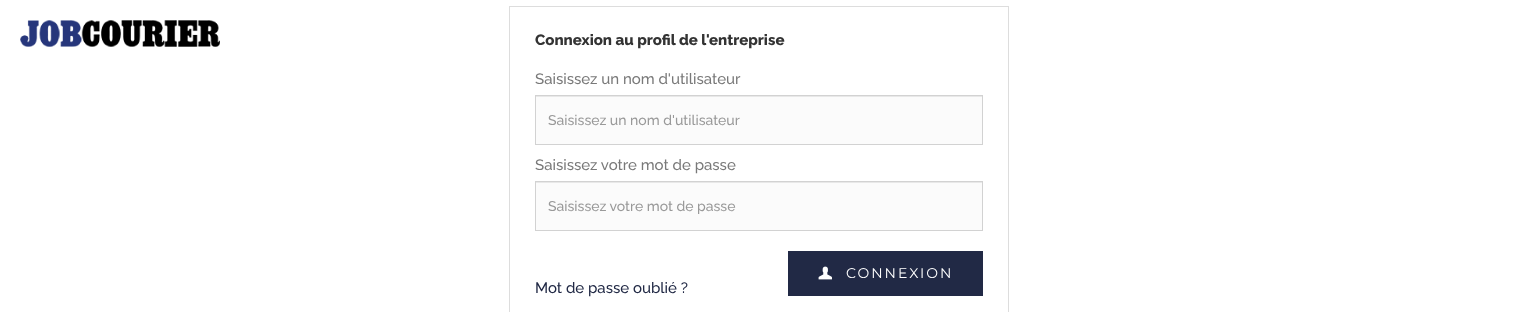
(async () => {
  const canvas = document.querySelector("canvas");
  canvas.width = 1518;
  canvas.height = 312;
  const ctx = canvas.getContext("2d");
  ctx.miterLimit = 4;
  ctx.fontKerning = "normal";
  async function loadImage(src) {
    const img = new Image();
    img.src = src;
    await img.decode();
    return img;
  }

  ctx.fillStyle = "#ffffff";
  ctx.fillRect(0, 0, 1518, 312);
  ctx.drawImage(await loadImage("img/1.png"), 20, 20, 200, 27);
  for (const [x, y, w, h, color] of [
    [509, 6, 500, 1, "#dddddd"],
    [1008, 6, 1, 306, "#dddddd"],
    [509, 6, 1, 306, "#dddddd"],
    [536, 97, 446, 47, "#fbfbfb"],
    [536, 96, 446, 1, "#e8e8e8"],
  ]) {
    ctx.fillStyle = color;
    ctx.fillRect(x, y, w, h);
  }
  ctx.strokeStyle = "#d2d2d2";
  ctx.strokeRect(535.5, 95.5, 447, 49);
  ctx.fillStyle = "#fbfbfb";
  ctx.fillRect(536, 183, 446, 47);
  ctx.fillStyle = "#e8e8e8";
  ctx.fillRect(536, 182, 446, 1);
  ctx.strokeRect(535.5, 181.5, 447, 49);
  ctx.fillStyle = "#212945";
  ctx.fillRect(788, 251, 195, 45);
  ctx.drawImage(await loadImage("img/2.png"), 818, 266, 14, 14);
  ctx.font = "800 15px Raleway";
  ctx.fillStyle = "#333333";
  ctx.fillText("Connexion au profil de l'entreprise", 535, 45);
  ctx.font = "500 15px Raleway";
  ctx.fillStyle = "#797979";
  ctx.fillText("Saisissez un nom d'utilisateur", 535, 84);
  ctx.font = "500 14px Raleway";
  ctx.fillStyle = "#999999";
  ctx.fillText("Saisissez un nom d'utilisateur", 548, 125);
  ctx.font = "500 15px Raleway";
  ctx.fillStyle = "#797979";
  ctx.fillText("Saisissez votre mot de passe", 535, 170);
  ctx.font = "500 14px Raleway";
  ctx.fillStyle = "#999999";
  ctx.fillText("Saisissez votre mot de passe", 548, 211);
  ctx.letterSpacing = "2px";
  ctx.font = "14px Montserrat";
  ctx.fillStyle = "#ffffff";
  ctx.fillText("CONNEXION", 846, 278);
  ctx.letterSpacing = "0px";
  ctx.font = "500 15px Raleway";
  ctx.fillStyle = "#212945";
  ctx.fillText("Mot de passe oublié ?", 535, 293);
})();
